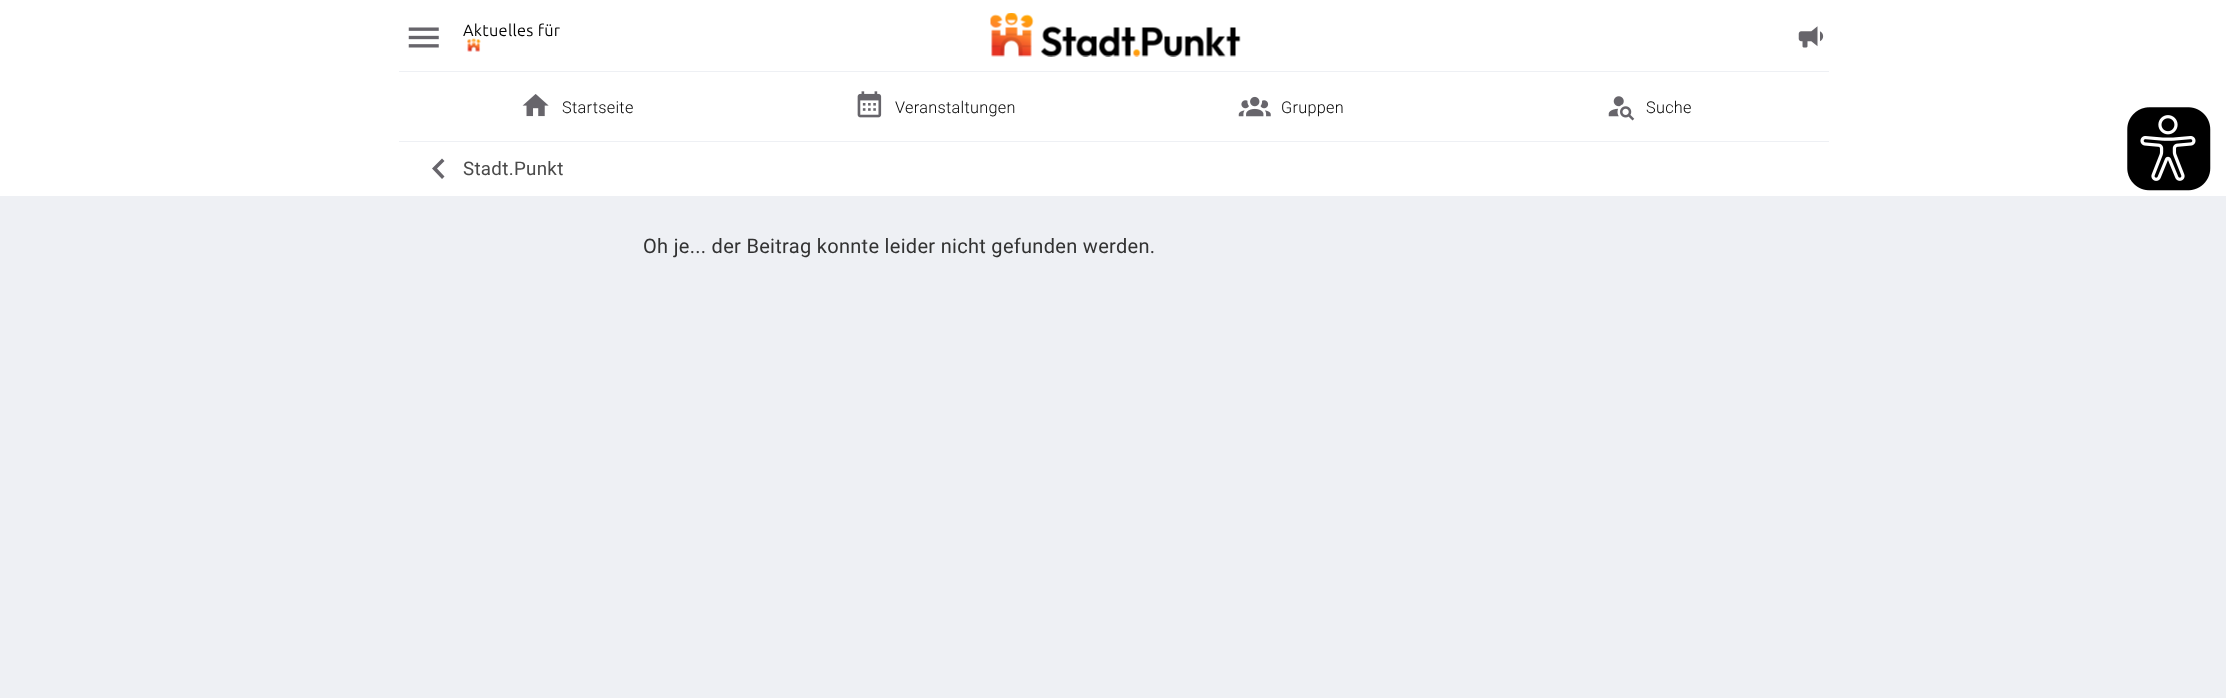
(async () => {
  const canvas = document.querySelector("canvas");
  canvas.width = 2226;
  canvas.height = 698;
  const ctx = canvas.getContext("2d");
  ctx.miterLimit = 4;
  ctx.fontKerning = "normal";
  async function loadImage(src) {
    const img = new Image();
    img.src = src;
    await img.decode();
    return img;
  }
  let path;

  ctx.fillStyle = "#eef0f4";
  ctx.fillRect(0, 0, 2226, 698);
  ctx.fillStyle = "#ffffff";
  ctx.fillRect(0, 0, 2226, 196);
  ctx.drawImage(await loadImage("img/1.png"), 408, 27, 31, 21);
  ctx.drawImage(await loadImage("img/2.png"), 467, 38, 14, 14);
  ctx.drawImage(await loadImage("img/3.png"), 990, 13, 251, 44);
  ctx.drawImage(await loadImage("img/4.png"), 1798, 26, 26, 22);
  ctx.fillStyle = "#eef0f4";
  ctx.fillRect(399, 71, 1430, 1);
  ctx.drawImage(await loadImage("img/5.png"), 522, 94, 27, 23);
  ctx.drawImage(await loadImage("img/6.png"), 857, 91, 25, 27);
  ctx.drawImage(await loadImage("img/7.png"), 1238, 96, 33, 21);
  ctx.drawImage(await loadImage("img/8.png"), 1608, 96, 27, 25);
  ctx.fillRect(399, 141, 1430, 1);
  ctx.fillStyle = "#67656b";
  path = new Path2D("M444.5 176.5L437 168.5L444.5 161L442 158.5L432 168.5L442 179Z");
  ctx.fill(path);
  ctx.drawImage(await loadImage("img/9.png"), 2127, 107, 84, 84);
  ctx.letterSpacing = "0.3px";
  ctx.font = "16.25px Ubuntu";
  ctx.fillStyle = "#050505";
  ctx.fillText("Aktuelles für", 463, 36);
  ctx.font = "300 16.25px Roboto";
  for (const [text, x, y] of [
    ["Startseite", 562, 113],
    ["Veranstaltungen", 895, 113],
    ["Gruppen", 1281, 113],
    ["Suche", 1646, 113],
  ]) {
    ctx.fillText(text, x, y);
  }
  ctx.font = "18.75px Roboto";
  ctx.fillStyle = "#4a4a4a";
  ctx.fillText("Stadt.Punkt", 463, 175);
  ctx.font = "20px Roboto";
  ctx.fillStyle = "#323232";
  ctx.fillText("Oh je... der Beitrag konnte leider nicht gefunden werden.", 643, 253);
})();
